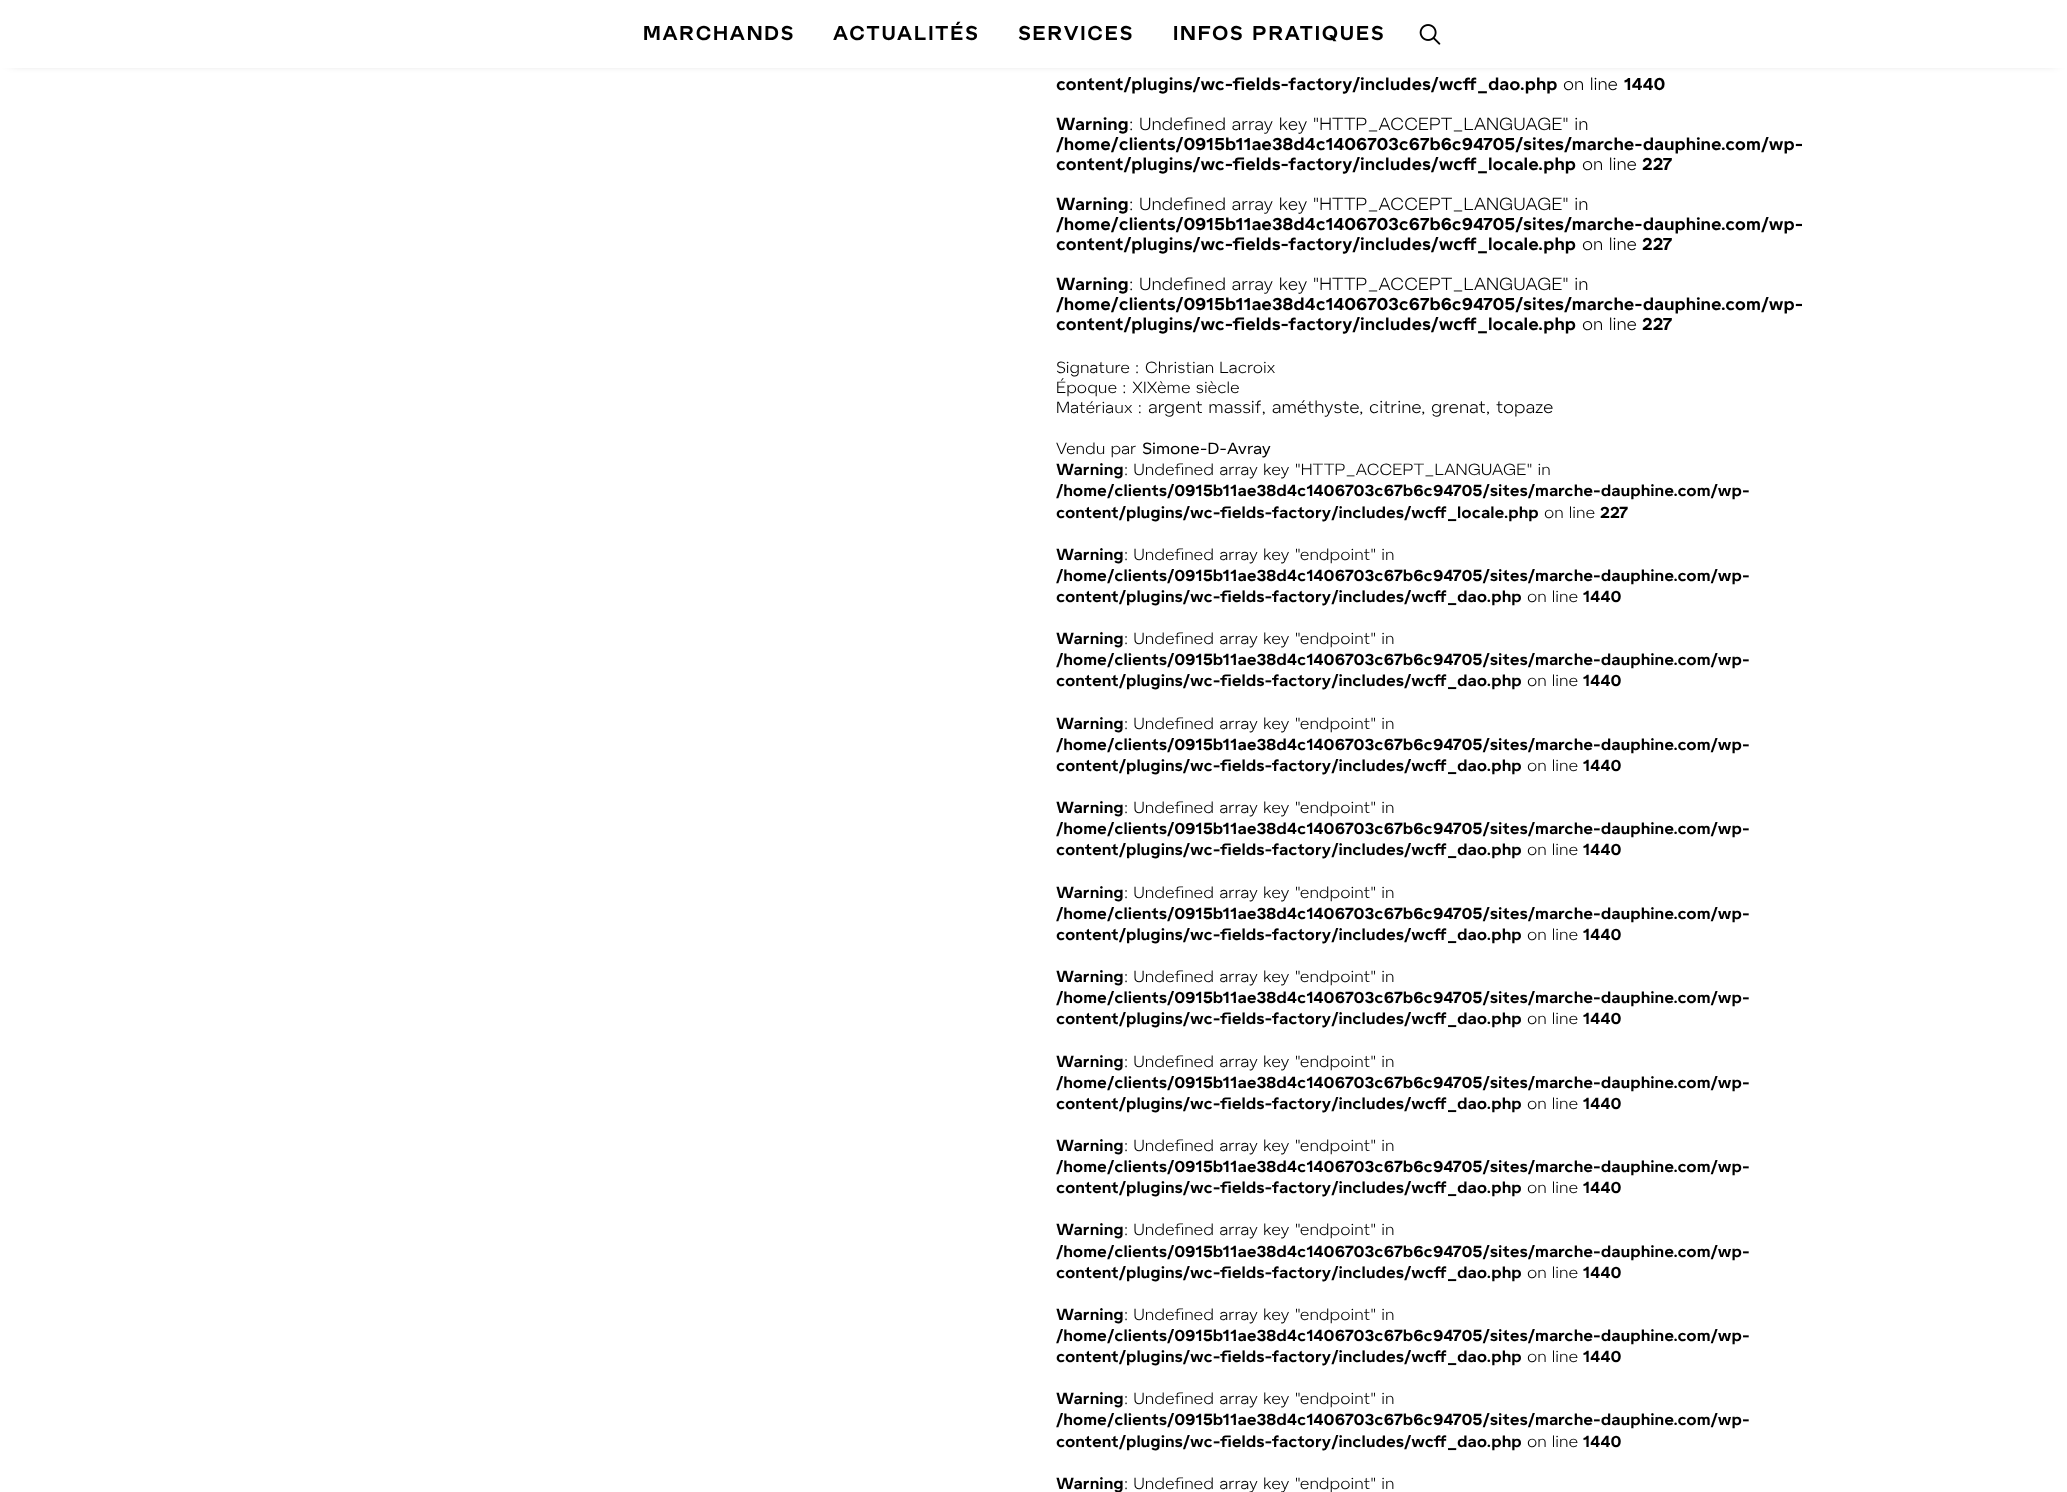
(async () => {
  const canvas = document.querySelector("canvas");
  canvas.width = 2067;
  canvas.height = 1492;
  const ctx = canvas.getContext("2d");
  ctx.miterLimit = 4;
  ctx.fontKerning = "normal";
  async function loadImage(src) {
    const img = new Image();
    img.src = src;
    await img.decode();
    return img;
  }

  ctx.fillStyle = "#ffffff";
  ctx.fillRect(0, 0, 2067, 1492);
  ctx.fillStyle = "rgba(0, 0, 0, 0.6)";
  ctx.filter = "blur(6px)";
  ctx.beginPath();
  ctx.rect(11, 18, 2045, 42);
  ctx.fill();
  ctx.filter = "none";
  ctx.fillStyle = "#ffffff";
  ctx.fillRect(0, 5, 2067, 63);
  ctx.drawImage(await loadImage("img/1.png"), 1419, 24, 22, 21);
  ctx.letterSpacing = "1.75px";
  ctx.font = "bold 20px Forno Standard";
  ctx.fillStyle = "#000000";
  for (const [text, x, y] of [
    ["MARCHANDS", 643, 40],
    ["ACTUALITÉS", 833, 40],
    ["SERVICES", 1018, 40],
    ["INFOS PRATIQUES", 1173, 40],
  ]) {
    ctx.fillText(text, x, y);
  }
  ctx.letterSpacing = "0px";
  ctx.font = "bold 17.5px Forno Standard";
  ctx.fillText("content/plugins/wc-fields-factory/includes/wcff_dao.php", 1056, 90);
  ctx.font = "300 17.5px Forno Standard";
  ctx.fillText("on line", 1563, 90);
  ctx.font = "bold 17.5px Forno Standard";
  ctx.fillText("1440", 1624, 90);
  ctx.fillText("Warning", 1056, 130);
  ctx.font = "300 17.5px Forno Standard";
  ctx.fillText(": Undefined array key \"HTTP_ACCEPT_LANGUAGE\" in", 1129, 130);
  ctx.font = "bold 17.5px Forno Standard";
  ctx.fillText("/home/clients/0915b11ae38d4c1406703c67b6c94705/sites/marche-dauphine.com/wp-", 1056, 150);
  ctx.fillText("content/plugins/wc-fields-factory/includes/wcff_locale.php", 1056, 170);
  ctx.font = "300 17.5px Forno Standard";
  ctx.fillText("on line", 1582, 170);
  ctx.font = "bold 17.5px Forno Standard";
  ctx.fillText("227", 1642, 170);
  ctx.fillText("Warning", 1056, 210);
  ctx.font = "300 17.5px Forno Standard";
  ctx.fillText(": Undefined array key \"HTTP_ACCEPT_LANGUAGE\" in", 1129, 210);
  ctx.font = "bold 17.5px Forno Standard";
  ctx.fillText("/home/clients/0915b11ae38d4c1406703c67b6c94705/sites/marche-dauphine.com/wp-", 1056, 230);
  ctx.fillText("content/plugins/wc-fields-factory/includes/wcff_locale.php", 1056, 250);
  ctx.font = "300 17.5px Forno Standard";
  ctx.fillText("on line", 1582, 250);
  ctx.font = "bold 17.5px Forno Standard";
  ctx.fillText("227", 1642, 250);
  ctx.fillText("Warning", 1056, 290);
  ctx.font = "300 17.5px Forno Standard";
  ctx.fillText(": Undefined array key \"HTTP_ACCEPT_LANGUAGE\" in", 1129, 290);
  ctx.font = "bold 17.5px Forno Standard";
  ctx.fillText("/home/clients/0915b11ae38d4c1406703c67b6c94705/sites/marche-dauphine.com/wp-", 1056, 310);
  ctx.fillText("content/plugins/wc-fields-factory/includes/wcff_locale.php", 1056, 330);
  ctx.font = "300 17.5px Forno Standard";
  ctx.fillText("on line", 1582, 330);
  ctx.font = "bold 17.5px Forno Standard";
  ctx.fillText("227", 1642, 330);
  ctx.font = "300 16.25px Forno Standard";
  for (const [text, x, y] of [
    ["Signature :", 1056, 373],
    ["Christian Lacroix", 1145, 373],
    ["Époque :", 1056, 393],
    ["XIXème siècle", 1132, 393],
    ["Matériaux :", 1056, 413],
  ]) {
    ctx.fillText(text, x, y);
  }
  ctx.font = "300 17.5px Forno Standard";
  ctx.fillText("argent massif, améthyste, citrine, grenat, topaze", 1148, 413);
  ctx.font = "300 16.25px Forno Standard";
  ctx.fillText("Vendu par", 1056, 454);
  ctx.font = "16.25px Forno Standard";
  ctx.fillText("Simone-D-Avray", 1142, 454);
  ctx.font = "bold 16.25px Forno Standard";
  ctx.fillText("Warning", 1056, 475);
  ctx.font = "300 16.25px Forno Standard";
  ctx.fillText(": Undefined array key \"HTTP_ACCEPT_LANGUAGE\" in", 1124, 475);
  ctx.font = "bold 16.25px Forno Standard";
  ctx.fillText("/home/clients/0915b11ae38d4c1406703c67b6c94705/sites/marche-dauphine.com/wp-", 1056, 496);
  ctx.fillText("content/plugins/wc-fields-factory/includes/wcff_locale.php", 1056, 518);
  ctx.font = "300 16.25px Forno Standard";
  ctx.fillText("on line", 1544, 518);
  ctx.font = "bold 16.25px Forno Standard";
  ctx.fillText("227", 1600, 518);
  ctx.fillText("Warning", 1056, 560);
  ctx.font = "300 16.25px Forno Standard";
  ctx.fillText(": Undefined array key \"endpoint\" in", 1124, 560);
  ctx.font = "bold 16.25px Forno Standard";
  ctx.fillText("/home/clients/0915b11ae38d4c1406703c67b6c94705/sites/marche-dauphine.com/wp-", 1056, 581);
  ctx.fillText("content/plugins/wc-fields-factory/includes/wcff_dao.php", 1056, 602);
  ctx.font = "300 16.25px Forno Standard";
  ctx.fillText("on line", 1527, 602);
  ctx.font = "bold 16.25px Forno Standard";
  ctx.fillText("1440", 1583, 602);
  ctx.fillText("Warning", 1056, 644);
  ctx.font = "300 16.25px Forno Standard";
  ctx.fillText(": Undefined array key \"endpoint\" in", 1124, 644);
  ctx.font = "bold 16.25px Forno Standard";
  ctx.fillText("/home/clients/0915b11ae38d4c1406703c67b6c94705/sites/marche-dauphine.com/wp-", 1056, 665);
  ctx.fillText("content/plugins/wc-fields-factory/includes/wcff_dao.php", 1056, 686);
  ctx.font = "300 16.25px Forno Standard";
  ctx.fillText("on line", 1527, 686);
  ctx.font = "bold 16.25px Forno Standard";
  ctx.fillText("1440", 1583, 686);
  ctx.fillText("Warning", 1056, 729);
  ctx.font = "300 16.25px Forno Standard";
  ctx.fillText(": Undefined array key \"endpoint\" in", 1124, 729);
  ctx.font = "bold 16.25px Forno Standard";
  ctx.fillText("/home/clients/0915b11ae38d4c1406703c67b6c94705/sites/marche-dauphine.com/wp-", 1056, 750);
  ctx.fillText("content/plugins/wc-fields-factory/includes/wcff_dao.php", 1056, 771);
  ctx.font = "300 16.25px Forno Standard";
  ctx.fillText("on line", 1527, 771);
  ctx.font = "bold 16.25px Forno Standard";
  ctx.fillText("1440", 1583, 771);
  ctx.fillText("Warning", 1056, 813);
  ctx.font = "300 16.25px Forno Standard";
  ctx.fillText(": Undefined array key \"endpoint\" in", 1124, 813);
  ctx.font = "bold 16.25px Forno Standard";
  ctx.fillText("/home/clients/0915b11ae38d4c1406703c67b6c94705/sites/marche-dauphine.com/wp-", 1056, 834);
  ctx.fillText("content/plugins/wc-fields-factory/includes/wcff_dao.php", 1056, 855);
  ctx.font = "300 16.25px Forno Standard";
  ctx.fillText("on line", 1527, 855);
  ctx.font = "bold 16.25px Forno Standard";
  ctx.fillText("1440", 1583, 855);
  ctx.fillText("Warning", 1056, 898);
  ctx.font = "300 16.25px Forno Standard";
  ctx.fillText(": Undefined array key \"endpoint\" in", 1124, 898);
  ctx.font = "bold 16.25px Forno Standard";
  ctx.fillText("/home/clients/0915b11ae38d4c1406703c67b6c94705/sites/marche-dauphine.com/wp-", 1056, 919);
  ctx.fillText("content/plugins/wc-fields-factory/includes/wcff_dao.php", 1056, 940);
  ctx.font = "300 16.25px Forno Standard";
  ctx.fillText("on line", 1527, 940);
  ctx.font = "bold 16.25px Forno Standard";
  ctx.fillText("1440", 1583, 940);
  ctx.fillText("Warning", 1056, 982);
  ctx.font = "300 16.25px Forno Standard";
  ctx.fillText(": Undefined array key \"endpoint\" in", 1124, 982);
  ctx.font = "bold 16.25px Forno Standard";
  ctx.fillText("/home/clients/0915b11ae38d4c1406703c67b6c94705/sites/marche-dauphine.com/wp-", 1056, 1003);
  ctx.fillText("content/plugins/wc-fields-factory/includes/wcff_dao.php", 1056, 1024);
  ctx.font = "300 16.25px Forno Standard";
  ctx.fillText("on line", 1527, 1024);
  ctx.font = "bold 16.25px Forno Standard";
  ctx.fillText("1440", 1583, 1024);
  ctx.fillText("Warning", 1056, 1067);
  ctx.font = "300 16.25px Forno Standard";
  ctx.fillText(": Undefined array key \"endpoint\" in", 1124, 1067);
  ctx.font = "bold 16.25px Forno Standard";
  ctx.fillText("/home/clients/0915b11ae38d4c1406703c67b6c94705/sites/marche-dauphine.com/wp-", 1056, 1088);
  ctx.fillText("content/plugins/wc-fields-factory/includes/wcff_dao.php", 1056, 1109);
  ctx.font = "300 16.25px Forno Standard";
  ctx.fillText("on line", 1527, 1109);
  ctx.font = "bold 16.25px Forno Standard";
  ctx.fillText("1440", 1583, 1109);
  ctx.fillText("Warning", 1056, 1151);
  ctx.font = "300 16.25px Forno Standard";
  ctx.fillText(": Undefined array key \"endpoint\" in", 1124, 1151);
  ctx.font = "bold 16.25px Forno Standard";
  ctx.fillText("/home/clients/0915b11ae38d4c1406703c67b6c94705/sites/marche-dauphine.com/wp-", 1056, 1172);
  ctx.fillText("content/plugins/wc-fields-factory/includes/wcff_dao.php", 1056, 1193);
  ctx.font = "300 16.25px Forno Standard";
  ctx.fillText("on line", 1527, 1193);
  ctx.font = "bold 16.25px Forno Standard";
  ctx.fillText("1440", 1583, 1193);
  ctx.fillText("Warning", 1056, 1235);
  ctx.font = "300 16.25px Forno Standard";
  ctx.fillText(": Undefined array key \"endpoint\" in", 1124, 1235);
  ctx.font = "bold 16.25px Forno Standard";
  ctx.fillText("/home/clients/0915b11ae38d4c1406703c67b6c94705/sites/marche-dauphine.com/wp-", 1056, 1257);
  ctx.fillText("content/plugins/wc-fields-factory/includes/wcff_dao.php", 1056, 1278);
  ctx.font = "300 16.25px Forno Standard";
  ctx.fillText("on line", 1527, 1278);
  ctx.font = "bold 16.25px Forno Standard";
  ctx.fillText("1440", 1583, 1278);
  ctx.fillText("Warning", 1056, 1320);
  ctx.font = "300 16.25px Forno Standard";
  ctx.fillText(": Undefined array key \"endpoint\" in", 1124, 1320);
  ctx.font = "bold 16.25px Forno Standard";
  ctx.fillText("/home/clients/0915b11ae38d4c1406703c67b6c94705/sites/marche-dauphine.com/wp-", 1056, 1341);
  ctx.fillText("content/plugins/wc-fields-factory/includes/wcff_dao.php", 1056, 1362);
  ctx.font = "300 16.25px Forno Standard";
  ctx.fillText("on line", 1527, 1362);
  ctx.font = "bold 16.25px Forno Standard";
  ctx.fillText("1440", 1583, 1362);
  ctx.fillText("Warning", 1056, 1404);
  ctx.font = "300 16.25px Forno Standard";
  ctx.fillText(": Undefined array key \"endpoint\" in", 1124, 1404);
  ctx.font = "bold 16.25px Forno Standard";
  ctx.fillText("/home/clients/0915b11ae38d4c1406703c67b6c94705/sites/marche-dauphine.com/wp-", 1056, 1425);
  ctx.fillText("content/plugins/wc-fields-factory/includes/wcff_dao.php", 1056, 1447);
  ctx.font = "300 16.25px Forno Standard";
  ctx.fillText("on line", 1527, 1447);
  ctx.font = "bold 16.25px Forno Standard";
  ctx.fillText("1440", 1583, 1447);
  ctx.fillText("Warning", 1056, 1489);
  ctx.font = "300 16.25px Forno Standard";
  ctx.fillText(": Undefined array key \"endpoint\" in", 1124, 1489);
})();
